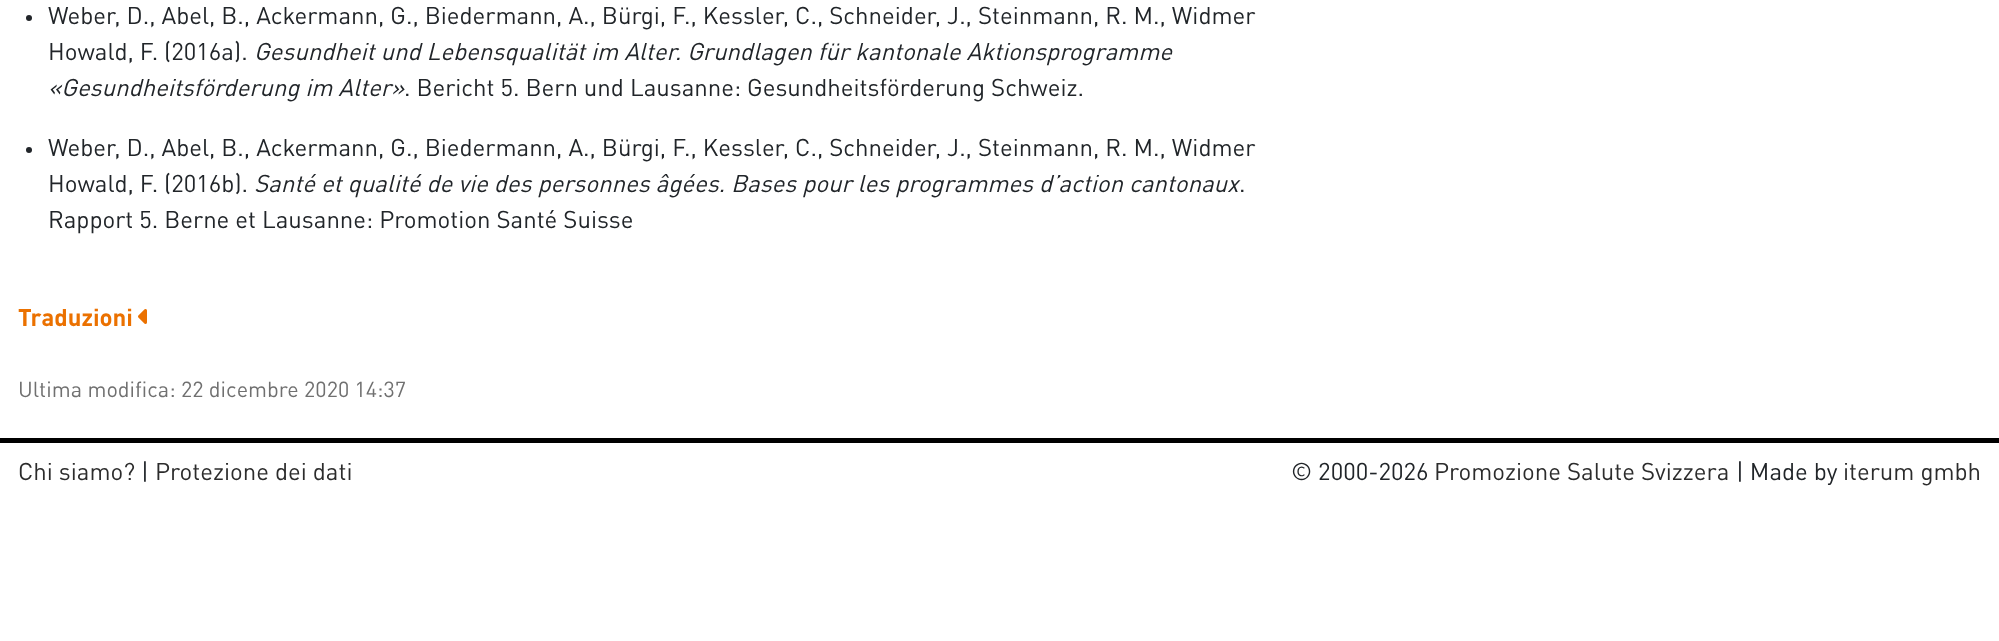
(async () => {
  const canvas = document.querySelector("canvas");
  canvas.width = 1999;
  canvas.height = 641;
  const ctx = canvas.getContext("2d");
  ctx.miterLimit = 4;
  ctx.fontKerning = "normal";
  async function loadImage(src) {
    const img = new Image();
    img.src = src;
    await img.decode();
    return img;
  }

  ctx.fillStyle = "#ffffff";
  ctx.fillRect(0, 0, 1999, 641);
  ctx.fillStyle = "#212529";
  ctx.beginPath();
  ctx.arc(29, 18, 3, 0, Math.PI * 2);
  ctx.fill();
  ctx.beginPath();
  ctx.arc(29, 150, 3, 0, Math.PI * 2);
  ctx.fill();
  ctx.drawImage(await loadImage("img/1.png"), 138, 309, 9, 15);
  ctx.fillStyle = "#000000";
  ctx.fillRect(0, 438, 1999, 5);
  ctx.font = "24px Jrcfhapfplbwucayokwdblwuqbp";
  ctx.fillStyle = "#212529";
  ctx.fillText("Weber, D., Abel, B., Ackermann, G., Biedermann, A., Bürgi, F., Kessler, C., Schneider, J., Steinmann, R. M., Widmer", 48, 24);
  ctx.fillText("Howald, F. (2016a).", 48, 60);
  ctx.font = "italic 24px Jrcfhapfplbwucayokwdblwuqbp";
  ctx.fillText("Gesundheit und Lebensqualität im Alter. Grundlagen für kantonale Aktionsprogramme", 254, 60);
  ctx.fillText("«Gesundheitsförderung im Alter»", 48, 96);
  ctx.font = "24px Jrcfhapfplbwucayokwdblwuqbp";
  for (const [text, x, y] of [
    [". Bericht 5. Bern und Lausanne: Gesundheitsförderung Schweiz.", 404, 96],
    ["Weber, D., Abel, B., Ackermann, G., Biedermann, A., Bürgi, F., Kessler, C., Schneider, J., Steinmann, R. M., Widmer", 48, 156],
    ["Howald, F. (2016b).", 48, 192],
  ]) {
    ctx.fillText(text, x, y);
  }
  ctx.font = "italic 24px Jrcfhapfplbwucayokwdblwuqbp";
  ctx.fillText("Santé et qualité de vie des personnes âgées. Bases pour les programmes d’action cantonaux", 254, 192);
  ctx.font = "24px Jrcfhapfplbwucayokwdblwuqbp";
  ctx.fillText(".", 1239, 192);
  ctx.fillText("Rapport 5. Berne et Lausanne: Promotion Santé Suisse", 48, 228);
  ctx.font = "bold 24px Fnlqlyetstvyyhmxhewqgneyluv";
  ctx.fillStyle = "#eb7100";
  ctx.fillText("Traduzioni", 18, 326);
  ctx.font = "21.6px Jrcfhapfplbwucayokwdblwuqbp";
  ctx.fillStyle = "#707070";
  ctx.fillText("Ultima modifica: 22 dicembre 2020 14:37", 18, 397);
  ctx.font = "24px Jrcfhapfplbwucayokwdblwuqbp";
  ctx.fillStyle = "#2c2c2c";
  ctx.fillText("Chi siamo?", 18, 480);
  ctx.fillStyle = "#212529";
  ctx.fillText("|", 141, 480);
  ctx.fillStyle = "#2c2c2c";
  ctx.fillText("Protezione dei dati", 155, 480);
  ctx.fillStyle = "#212529";
  ctx.fillText("© 2000-2026", 1291, 480);
  ctx.fillStyle = "#2c2c2c";
  ctx.fillText("Promozione Salute Svizzera", 1434, 480);
  ctx.fillStyle = "#212529";
  ctx.fillText("| Made by", 1736, 480);
  ctx.fillStyle = "#2c2c2c";
  ctx.fillText("iterum gmbh", 1843, 480);
})();
